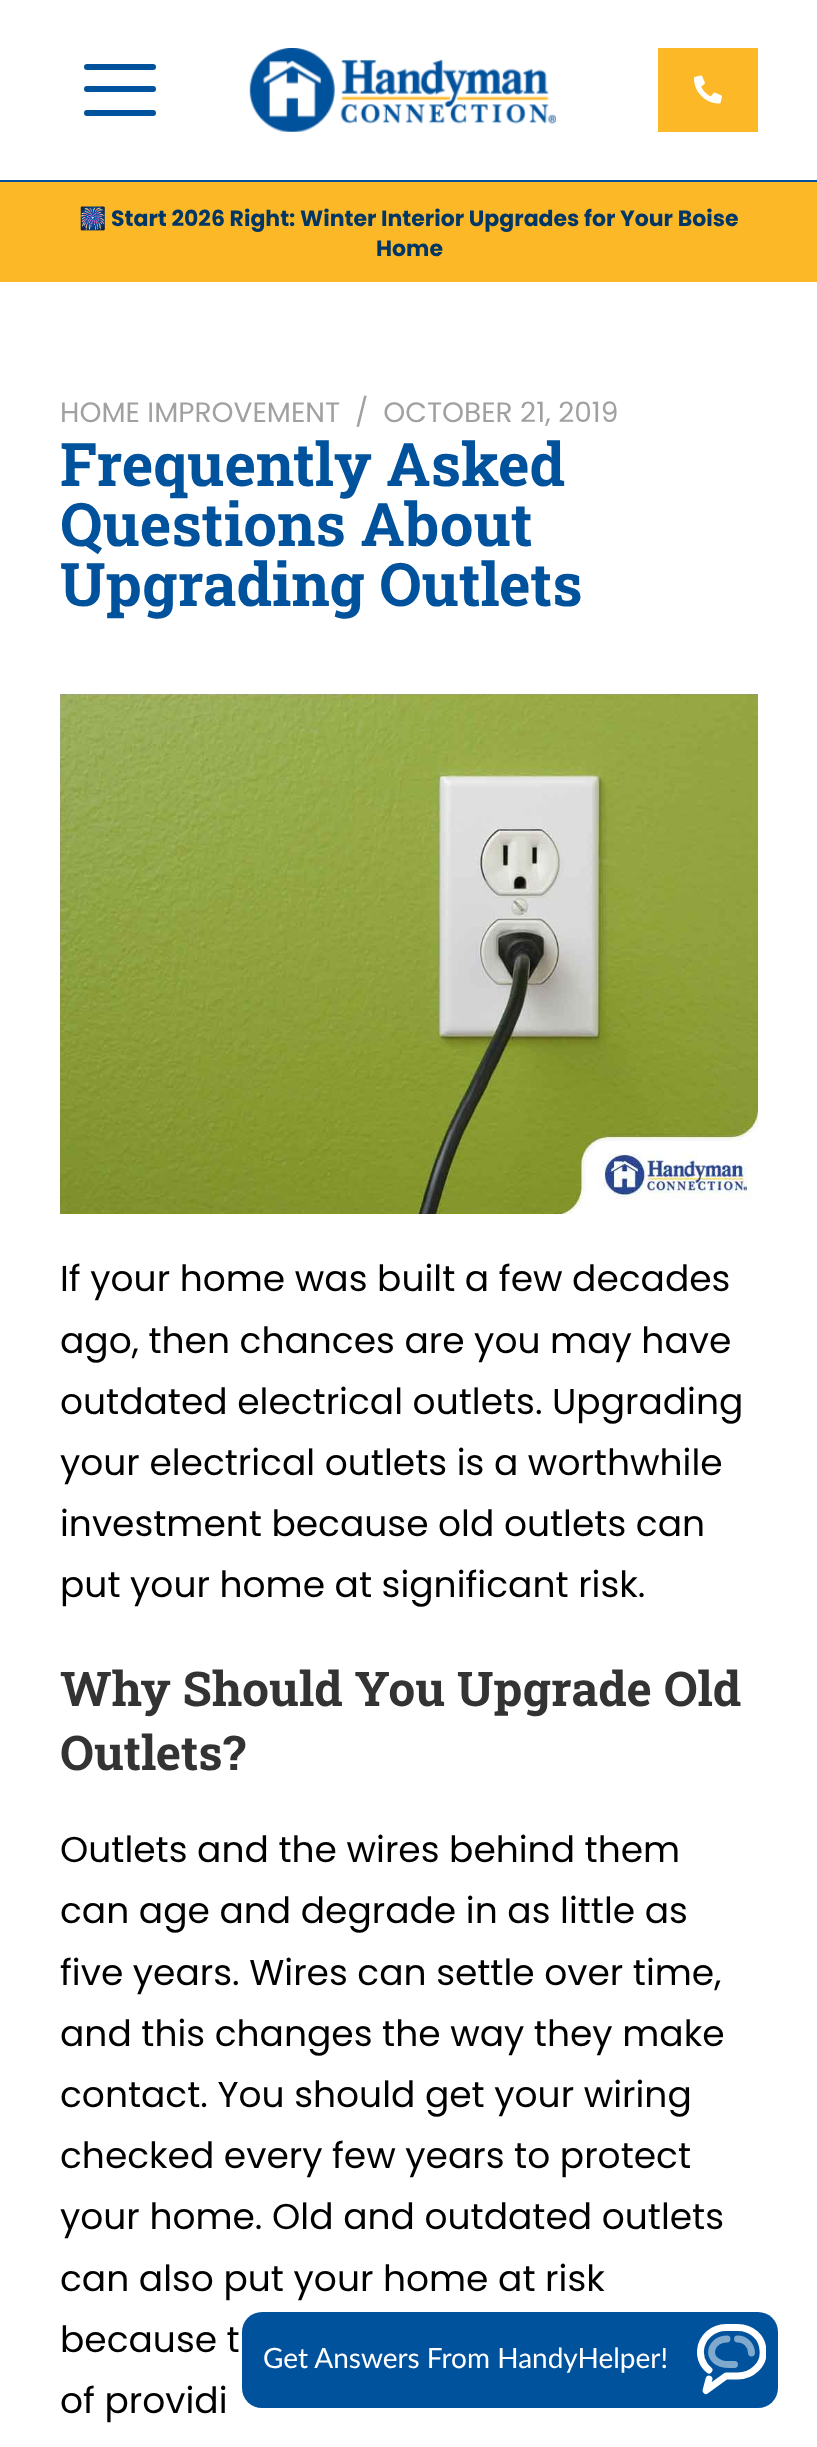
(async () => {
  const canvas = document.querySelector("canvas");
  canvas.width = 817;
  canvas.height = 2447;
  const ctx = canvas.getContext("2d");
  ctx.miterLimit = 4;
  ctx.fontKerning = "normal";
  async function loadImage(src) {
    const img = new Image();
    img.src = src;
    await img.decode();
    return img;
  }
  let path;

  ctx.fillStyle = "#ffffff";
  ctx.fillRect(0, 0, 817, 2447);
  ctx.fillStyle = "#00529c";
  ctx.fillRect(0, 180, 817, 2);
  ctx.beginPath();
  ctx.roundRect(84, 64, 72, 6, 3);
  ctx.fill();
  ctx.beginPath();
  ctx.roundRect(84, 86, 72, 6, 3);
  ctx.fill();
  ctx.beginPath();
  ctx.roundRect(84, 110, 72, 6, 3);
  ctx.fill();
  ctx.drawImage(await loadImage("img/1.png"), 249, 48, 307, 84);
  ctx.fillStyle = "#fdb827";
  ctx.fillRect(658, 48, 100, 84);
  ctx.drawImage(await loadImage("img/2.png"), 694, 75, 28, 29);
  ctx.fillRect(0, 182, 817, 100);
  ctx.drawImage(await loadImage("img/3.png"), 60, 694, 698, 520);
  ctx.fillStyle = "#00529c";
  ctx.beginPath();
  ctx.roundRect(242, 2312, 536, 96, 20);
  ctx.fill();
  ctx.save();
  ctx.beginPath();
  ctx.rect(694, 2324, 72, 72);
  ctx.clip();
  path = new Path2D("M709 2370C709 2370 699.5 2363 700.5 2350.5C701.5 2337.5 712.5 2327.5 726 2327.5H737.5C752 2327.5 762.5 2337.5 763 2350.5C764.5 2364.5 752 2376 737.5 2376H726L706 2390.5L709 2379");
  ctx.strokeStyle = "#ffffff";
  ctx.lineWidth = 6.9;
  ctx.lineCap = "round";
  ctx.lineJoin = "round";
  ctx.stroke(path);
  ctx.restore();
  path = new Path2D("M734.5 2364.5C730 2364.5 725.5 2365 721 2363.5C705 2358 711 2339 727 2339M737.5 2339C745.5 2339 751.5 2345.5 751.5 2353");
  ctx.strokeStyle = "#80a9ce";
  ctx.lineWidth = 6.9;
  ctx.lineCap = "round";
  ctx.lineJoin = "round";
  ctx.stroke(path);
  ctx.font = "bold 22px Noto Color Emoji";
  ctx.fillStyle = "#023765";
  ctx.fillText("🎆", 79, 226);
  ctx.font = "bold 22px Poppins";
  ctx.fillText("Start 2026 Right: Winter Interior Upgrades for Your Boise", 111, 226);
  ctx.fillText("Home", 376, 256);
  ctx.font = "28px Poppins";
  ctx.fillStyle = "#a1a1a1";
  ctx.fillText("HOME IMPROVEMENT", 60, 422);
  ctx.fillText("/  OCTOBER 21, 2019", 355, 422);
  ctx.font = "bold 60px Roboto Slab";
  ctx.fillStyle = "#00529c";
  for (const [text, x, y] of [
    ["Frequently Asked", 60, 486],
    ["Questions About", 60, 546],
    ["Upgrading Outlets", 60, 606],
  ]) {
    ctx.fillText(text, x, y);
  }
  ctx.font = "36px Poppins";
  ctx.fillStyle = "#000000";
  for (const [text, x, y] of [
    ["If your home was built a few decades", 60, 1291],
    ["ago, then chances are you may have", 60, 1353],
    ["outdated electrical outlets. Upgrading", 60, 1414],
    ["your electrical outlets is a worthwhile", 60, 1475],
    ["investment because old outlets can", 60, 1536],
    ["put your home at significant risk.", 60, 1597],
  ]) {
    ctx.fillText(text, x, y);
  }
  ctx.font = "bold 48px Roboto Slab";
  ctx.fillStyle = "#333333";
  ctx.fillText("Why Should You Upgrade Old", 60, 1706);
  ctx.fillText("Outlets?", 60, 1770);
  ctx.font = "36px Poppins";
  ctx.fillStyle = "#000000";
  for (const [text, x, y] of [
    ["Outlets and the wires behind them", 60, 1862],
    ["can age and degrade in as little as", 60, 1923],
    ["five years. Wires can settle over time,", 60, 1985],
    ["and this changes the way they make", 60, 2046],
    ["contact. You should get your wiring", 60, 2107],
    ["checked every few years to protect", 60, 2168],
    ["your home. Old and outdated outlets", 60, 2229],
    ["can also put your home at risk", 60, 2291],
    ["because t", 60, 2352],
    ["of providi", 60, 2413],
  ]) {
    ctx.fillText(text, x, y);
  }
  ctx.font = "28px Lato";
  ctx.fillStyle = "#ffffff";
  ctx.fillText("Get Answers From HandyHelper!", 263, 2368);
})();
